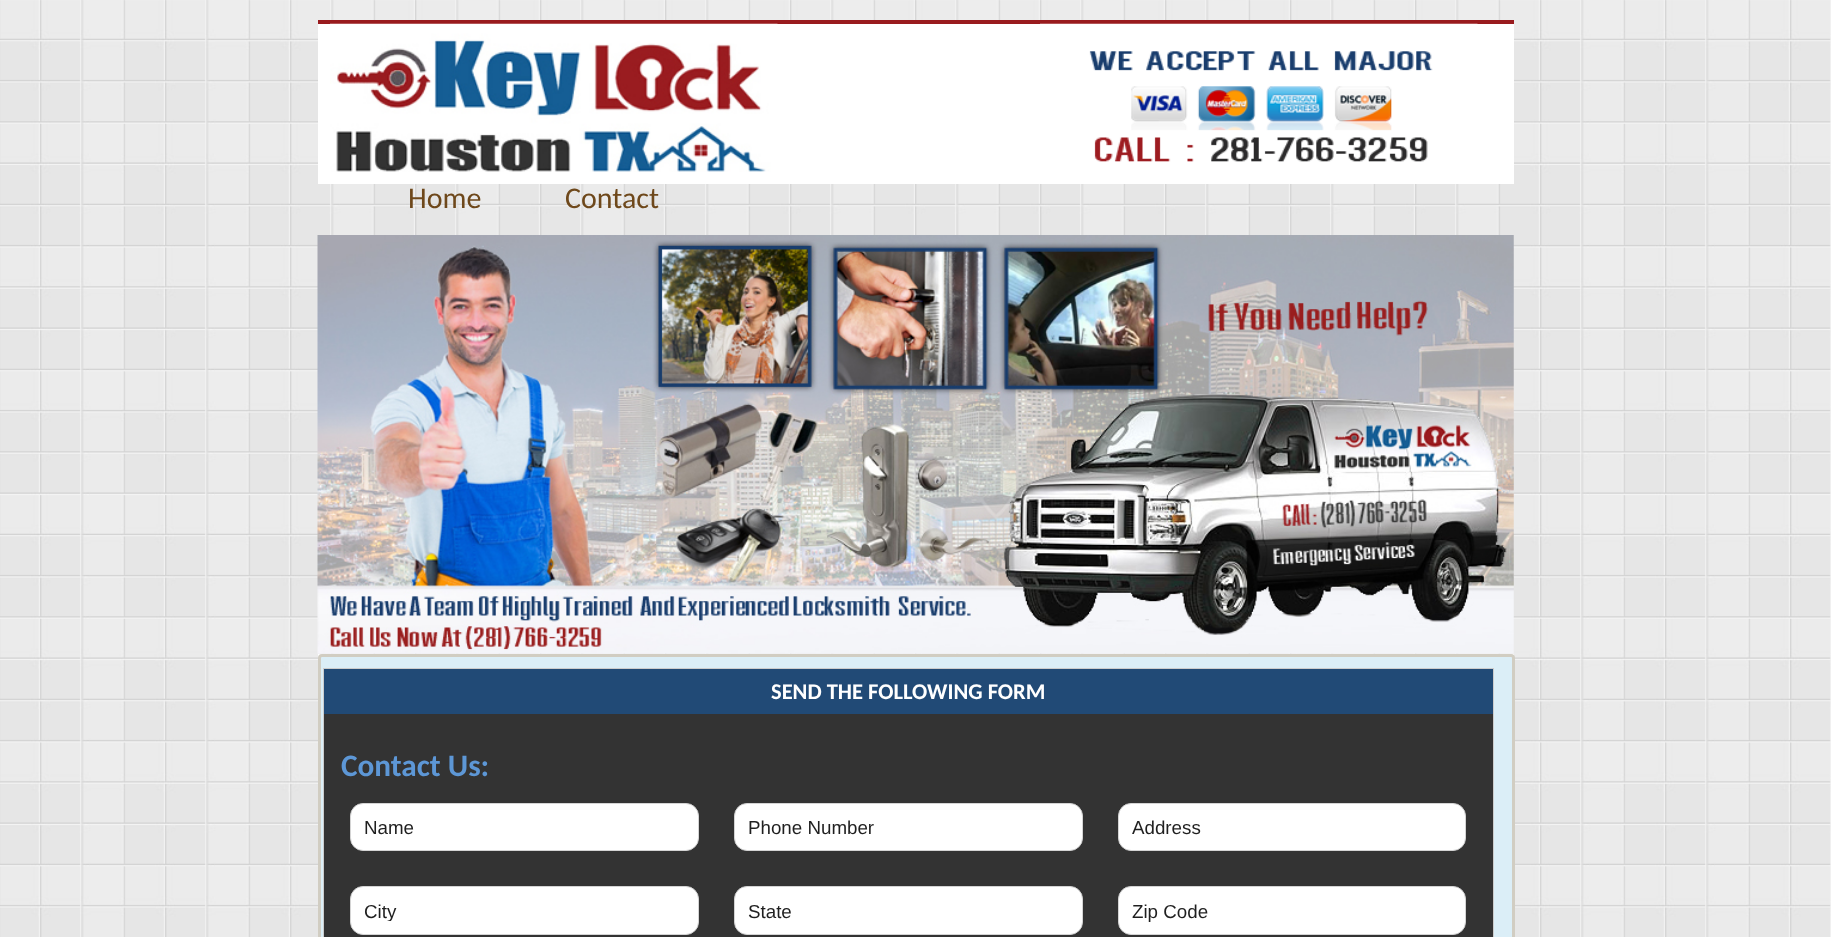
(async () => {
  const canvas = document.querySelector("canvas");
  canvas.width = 1831;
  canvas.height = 937;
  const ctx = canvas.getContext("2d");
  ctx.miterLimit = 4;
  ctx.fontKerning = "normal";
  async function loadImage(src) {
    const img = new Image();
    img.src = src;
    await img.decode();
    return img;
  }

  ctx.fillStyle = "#ffffff";
  ctx.fillRect(0, 0, 1831, 937);
  ctx.drawImage(await loadImage("img/1.png"), 0, 0, 1831, 937);
  ctx.fillRect(318, 24, 1196, 160);
  ctx.fillStyle = "#991b1e";
  ctx.fillRect(318, 20, 1196, 4);
  ctx.drawImage(await loadImage("img/2.png"), 330, 23, 448, 149);
  ctx.drawImage(await loadImage("img/3.png"), 1040, 23, 438, 139);
  ctx.drawImage(await loadImage("img/4.png"), 317, 235, 1197, 419);
  ctx.fillStyle = "#ffffff";
  ctx.fillRect(318, 654, 1196, 4);
  ctx.fillStyle = "#dbeef7";
  ctx.beginPath();
  ctx.roundRect(319.5, 655.5, 1194, 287, 2.5);
  ctx.fill();
  ctx.strokeStyle = "#d1cdc2";
  ctx.lineWidth = 3;
  ctx.stroke();
  ctx.fillStyle = "#333333";
  ctx.fillRect(324, 714, 1169, 223);
  ctx.strokeStyle = "#cccccc";
  ctx.lineWidth = 1;
  ctx.strokeRect(323.5, 668.5, 1170, 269);
  ctx.fillStyle = "#214a76";
  ctx.fillRect(324, 669, 1169, 45);
  ctx.fillStyle = "#ffffff";
  ctx.beginPath();
  ctx.roundRect(350.5, 803.5, 348, 47, 12.5);
  ctx.fill();
  ctx.strokeStyle = "#d4d4d4";
  ctx.stroke();
  ctx.beginPath();
  ctx.roundRect(734.5, 803.5, 348, 47, 12.5);
  ctx.fill();
  ctx.stroke();
  ctx.beginPath();
  ctx.roundRect(1118.5, 803.5, 347, 47, 12.5);
  ctx.fill();
  ctx.stroke();
  ctx.beginPath();
  ctx.roundRect(350.5, 886.5, 348, 48, 12.5);
  ctx.fill();
  ctx.stroke();
  ctx.beginPath();
  ctx.roundRect(734.5, 886.5, 348, 48, 12.5);
  ctx.fill();
  ctx.stroke();
  ctx.beginPath();
  ctx.roundRect(1118.5, 886.5, 347, 48, 12.5);
  ctx.fill();
  ctx.stroke();
  ctx.font = "30px Carlito";
  ctx.fillStyle = "#6e481b";
  ctx.fillText("Home", 408, 208);
  ctx.fillText("Contact", 565, 208);
  ctx.font = "bold 22.5px Carlito";
  ctx.fillStyle = "#ffffff";
  ctx.fillText("SEND THE FOLLOWING FORM", 771, 699);
  ctx.font = "bold 31.25px Carlito";
  ctx.fillStyle = "#5d97d6";
  ctx.fillText("Contact Us:", 341, 776);
  ctx.font = "18.75px Liberation Sans";
  ctx.fillStyle = "#1f1f1f";
  for (const [text, x, y] of [
    ["Name", 364, 834],
    ["Phone Number", 748, 834],
    ["Address", 1132, 834],
  ]) {
    ctx.fillText(text, x, y);
  }
  ctx.save();
  ctx.beginPath();
  ctx.rect(364, 900, 321, 21);
  ctx.clip();
  ctx.fillText("City", 364, 918);
  ctx.restore();
  ctx.fillText("State", 748, 918);
  ctx.fillText("Zip Code", 1132, 918);
})();
